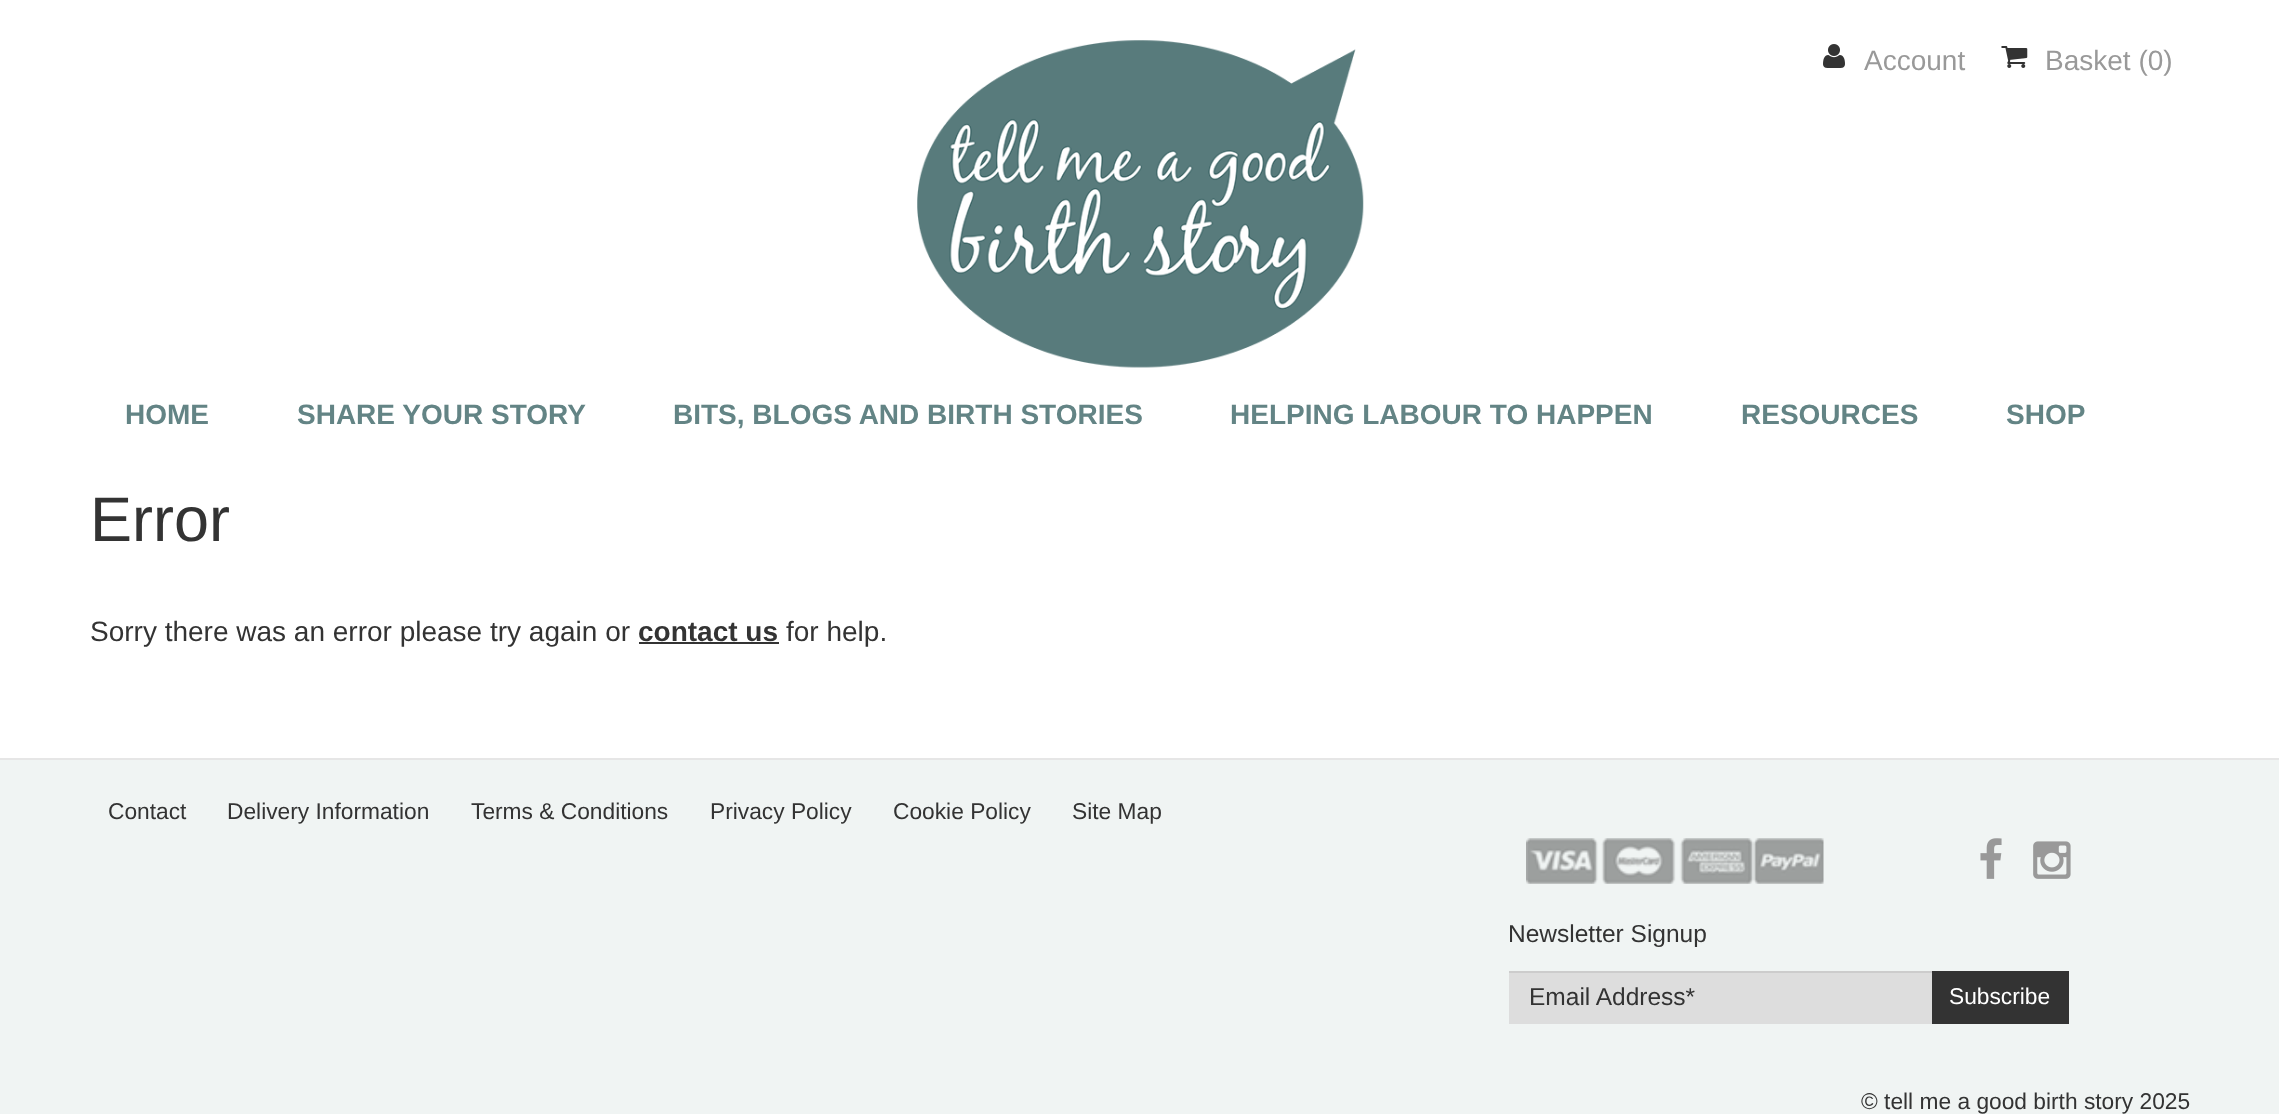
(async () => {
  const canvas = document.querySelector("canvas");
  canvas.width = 2279;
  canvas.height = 1114;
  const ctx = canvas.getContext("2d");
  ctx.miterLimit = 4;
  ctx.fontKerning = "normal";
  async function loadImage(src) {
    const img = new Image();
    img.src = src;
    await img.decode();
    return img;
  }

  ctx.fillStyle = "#ffffff";
  ctx.fillRect(0, 0, 2279, 1114);
  ctx.drawImage(await loadImage("img/1.png"), 917, 40, 447, 328);
  ctx.drawImage(await loadImage("img/2.png"), 1823, 44, 22, 24);
  ctx.drawImage(await loadImage("img/3.png"), 2001, 46, 27, 22);
  for (const [x, y, w, h, color] of [
    [639, 642, 140, 2, "#333333"],
    [0, 760, 2279, 354, "#f0f4f3"],
    [0, 758, 2279, 2, "#e6e6e6"],
  ]) {
    ctx.fillStyle = color;
    ctx.fillRect(x, y, w, h);
  }
  ctx.drawImage(await loadImage("img/4.png"), 1526, 838, 298, 46);
  ctx.drawImage(await loadImage("img/5.png"), 1980, 838, 22, 41);
  ctx.drawImage(await loadImage("img/6.png"), 2033, 841, 38, 38);
  for (const [x, y, w, h, color] of [
    [1509, 973, 423, 51, "#dddddd"],
    [1509, 971, 423, 2, "#cccccc"],
    [1932, 971, 137, 53, "#333333"],
  ]) {
    ctx.fillStyle = color;
    ctx.fillRect(x, y, w, h);
  }
  ctx.font = "28px Liberation Sans";
  ctx.fillStyle = "#999999";
  ctx.fillText("Account", 1864, 70);
  ctx.fillText("Basket (0)", 2045, 70);
  ctx.font = "bold 28px Liberation Sans";
  ctx.fillStyle = "#638485";
  for (const [text, x, y] of [
    ["HOME", 125, 424],
    ["SHARE YOUR STORY", 297, 424],
    ["BITS, BLOGS AND BIRTH STORIES", 673, 424],
    ["HELPING LABOUR TO HAPPEN", 1230, 424],
    ["RESOURCES", 1741, 424],
    ["SHOP", 2006, 424],
  ]) {
    ctx.fillText(text, x, y);
  }
  ctx.font = "63px Liberation Sans";
  ctx.fillStyle = "#333333";
  ctx.fillText("Error", 90, 541);
  ctx.font = "28px Liberation Sans";
  ctx.fillText("Sorry there was an error please try again or", 90, 641);
  ctx.font = "bold 28px Liberation Sans";
  ctx.fillText("contact us", 638, 641);
  ctx.font = "28px Liberation Sans";
  ctx.fillText("for help.", 786, 641);
  ctx.font = "22.75px Liberation Sans";
  for (const [text, x, y] of [
    ["Contact", 108, 819],
    ["Delivery Information", 227, 819],
    ["Terms & Conditions", 471, 819],
    ["Privacy Policy", 710, 819],
    ["Cookie Policy", 893, 819],
    ["Site Map", 1072, 819],
  ]) {
    ctx.fillText(text, x, y);
  }
  ctx.font = "24.5px Liberation Sans";
  ctx.fillText("Newsletter Signup", 1508, 942);
  ctx.fillText("Email Address*", 1529, 1005);
  ctx.font = "22.75px Liberation Sans";
  ctx.fillStyle = "#ffffff";
  ctx.fillText("Subscribe", 1949, 1004);
  ctx.fillStyle = "#333333";
  ctx.fillText("© tell me a good birth story 2025", 1861, 1109);
})();
